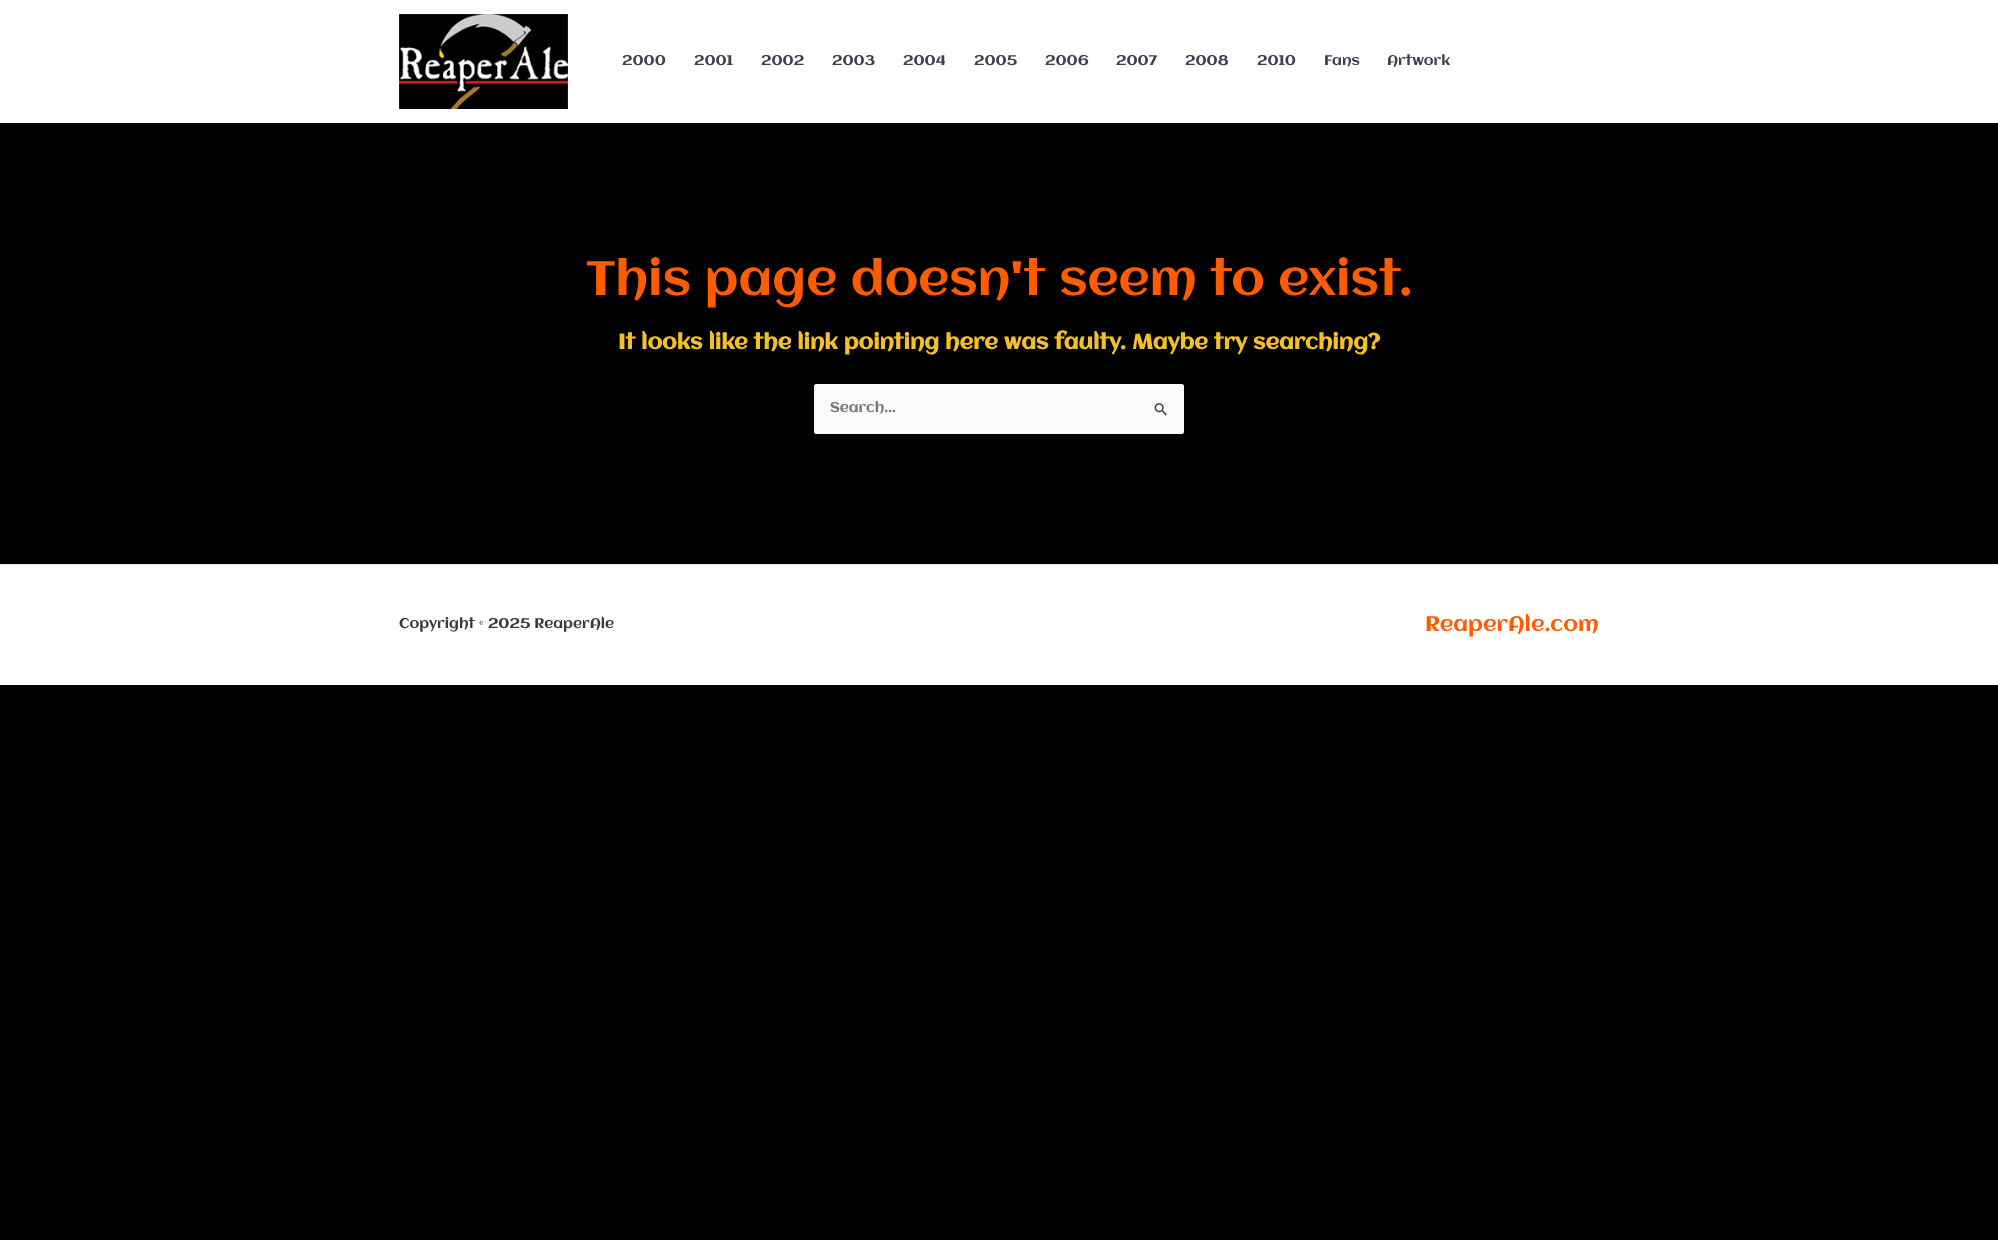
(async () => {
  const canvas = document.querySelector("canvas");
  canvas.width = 1998;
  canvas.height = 1240;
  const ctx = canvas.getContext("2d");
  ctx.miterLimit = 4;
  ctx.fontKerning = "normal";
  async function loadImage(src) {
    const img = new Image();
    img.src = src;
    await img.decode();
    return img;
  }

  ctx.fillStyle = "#000000";
  ctx.fillRect(0, 0, 1998, 1240);
  ctx.fillStyle = "#ffffff";
  ctx.fillRect(0, 0, 1998, 123);
  ctx.drawImage(await loadImage("img/1.png"), 399, 14, 169, 95);
  ctx.fillStyle = "#fafafa";
  ctx.beginPath();
  ctx.roundRect(814.5, 384.5, 369, 49, 1.5);
  ctx.fill();
  ctx.strokeStyle = "#f7f7f7";
  ctx.stroke();
  ctx.drawImage(await loadImage("img/2.png"), 1154, 403, 13, 13);
  ctx.fillStyle = "#ffffff";
  ctx.fillRect(0, 565, 1998, 120);
  ctx.fillStyle = "#e6e6e6";
  ctx.fillRect(0, 564, 1998, 1);
  ctx.font = "14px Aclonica";
  ctx.fillStyle = "#3c4050";
  for (const [text, x, y] of [
    ["2000", 622, 65],
    ["2001", 694, 65],
    ["2002", 761, 65],
    ["2003", 832, 65],
    ["2004", 903, 65],
    ["2005", 974, 65],
    ["2006", 1045, 65],
    ["2007", 1116, 65],
    ["2008", 1185, 65],
    ["2010", 1257, 65],
    ["Fans", 1324, 65],
    ["Artwork", 1387, 65],
  ]) {
    ctx.fillText(text, x, y);
  }
  ctx.font = "48px Aclonica";
  ctx.fillStyle = "#ff5b00";
  ctx.fillText("This page doesn't seem to exist.", 586, 295);
  ctx.font = "bold 21px Aclonica";
  ctx.fillStyle = "#f3c027";
  ctx.fillText("It looks like the link pointing here was faulty. Maybe try searching?", 618, 349);
  ctx.font = "14px Aclonica";
  ctx.fillStyle = "#757575";
  ctx.fillText("Search...", 830, 412);
  ctx.fillStyle = "#3a3a3a";
  ctx.fillText("Copyright © 2025 ReaperAle", 399, 628);
  ctx.font = "21px Aclonica";
  ctx.fillStyle = "#ff5b00";
  ctx.fillText("ReaperAle.com", 1425, 631);
})();
